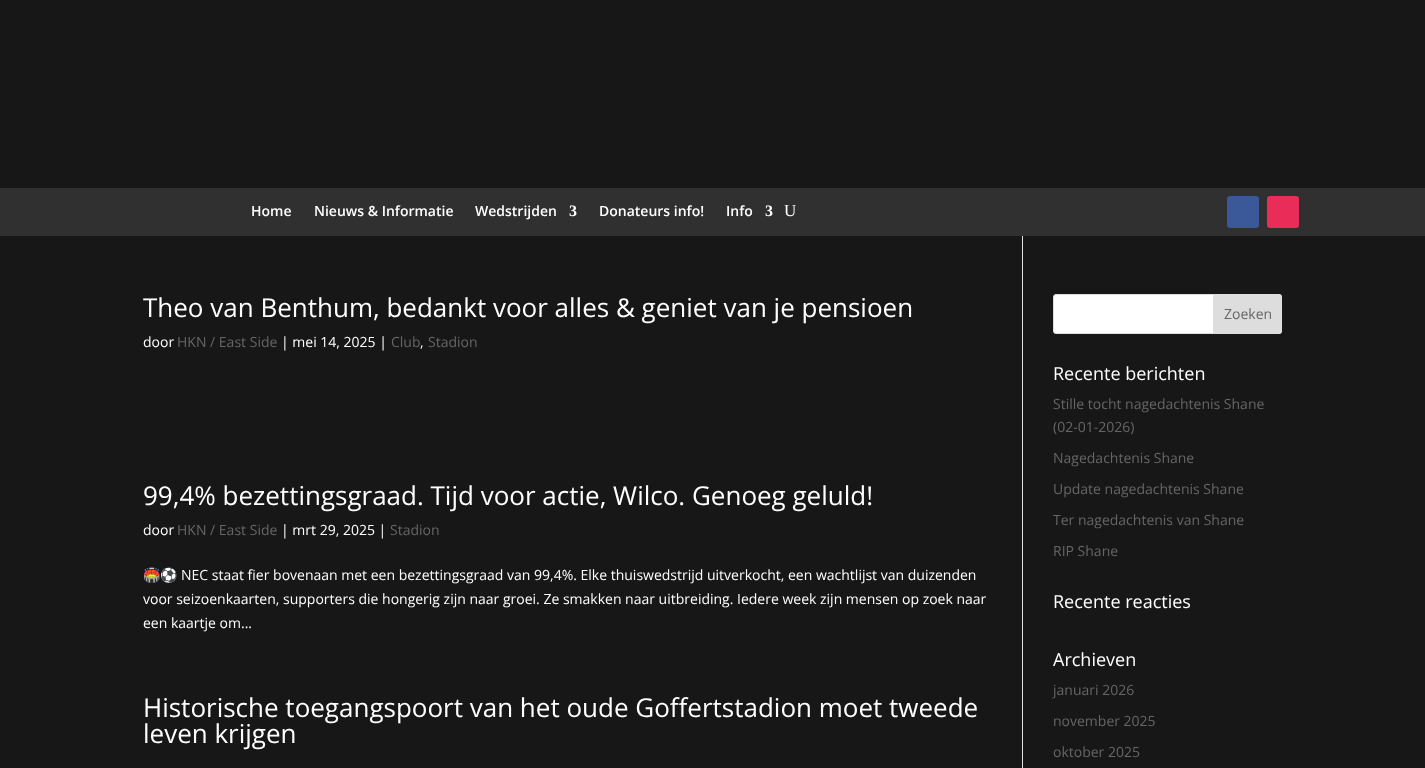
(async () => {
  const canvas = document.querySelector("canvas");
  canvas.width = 1425;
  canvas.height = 768;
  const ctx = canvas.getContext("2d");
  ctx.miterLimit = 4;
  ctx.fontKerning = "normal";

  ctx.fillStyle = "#171717";
  ctx.fillRect(0, 0, 1425, 768);
  ctx.fillStyle = "#303030";
  ctx.fillRect(0, 188, 1425, 48);
  ctx.fillStyle = "#3b5998";
  ctx.beginPath();
  ctx.roundRect(1227, 196, 32, 32, 3);
  ctx.fill();
  ctx.fillStyle = "#ea2c59";
  ctx.beginPath();
  ctx.roundRect(1267, 196, 32, 32, 3);
  ctx.fill();
  ctx.fillStyle = "#e2e2e2";
  ctx.fillRect(1022, 236, 1, 532);
  ctx.fillStyle = "#ffffff";
  ctx.beginPath();
  ctx.roundRect(1053.5, 294.5, 228, 39, 2.5);
  ctx.fill();
  ctx.strokeStyle = "#dddddd";
  ctx.stroke();
  ctx.fillStyle = "#dddddd";
  ctx.beginPath();
  ctx.roundRect(1213.5, 294.5, 68, 39, [0, 2.5, 2.5, 0]);
  ctx.fill();
  ctx.stroke();
  ctx.font = "600 14px Open Sans";
  ctx.fillStyle = "#ffffff";
  for (const [text, x, y] of [
    ["Home", 251, 216],
    ["Nieuws & Informatie", 314, 216],
    ["Wedstrijden", 475, 216],
  ]) {
    ctx.fillText(text, x, y);
  }
  ctx.font = "bold 16px Liberation Serif";
  ctx.fillText("3", 569, 216);
  ctx.font = "600 14px Open Sans";
  ctx.fillText("Donateurs info!", 599, 216);
  ctx.fillText("Info", 726, 216);
  ctx.font = "bold 16px Liberation Serif";
  ctx.fillText("3", 765, 216);
  ctx.font = "17px Liberation Serif";
  ctx.fillText("U", 784, 216);
  ctx.font = "26px Open Sans";
  ctx.fillText("Theo van Benthum, bedankt voor alles & geniet van je pensioen", 143, 317);
  ctx.font = "14px Open Sans";
  ctx.fillText("door", 143, 347);
  ctx.fillStyle = "#666666";
  ctx.fillText("HKN / East Side", 177, 347);
  ctx.fillStyle = "#ffffff";
  ctx.fillText("| mei 14, 2025 |", 281, 347);
  ctx.fillStyle = "#666666";
  ctx.fillText("Club", 391, 347);
  ctx.fillStyle = "#ffffff";
  ctx.fillText(",", 420, 347);
  ctx.fillStyle = "#666666";
  ctx.fillText("Stadion", 428, 347);
  ctx.font = "26px Open Sans";
  ctx.fillStyle = "#ffffff";
  ctx.fillText("99,4% bezettingsgraad. Tijd voor actie, Wilco. Genoeg geluld!", 143, 505);
  ctx.font = "14px Open Sans";
  ctx.fillText("door", 143, 535);
  ctx.fillStyle = "#666666";
  ctx.fillText("HKN / East Side", 177, 535);
  ctx.fillStyle = "#ffffff";
  ctx.fillText("| mrt 29, 2025 |", 281, 535);
  ctx.fillStyle = "#666666";
  ctx.fillText("Stadion", 390, 535);
  ctx.font = "14px Noto Color Emoji";
  ctx.fillStyle = "#ffffff";
  ctx.fillText("🏟️⚽️", 143, 580);
  ctx.font = "14px Open Sans";
  for (const [text, x, y] of [
    ["NEC staat fier bovenaan met een bezettingsgraad van 99,4%. Elke thuiswedstrijd uitverkocht, een wachtlijst van duizenden", 181, 580],
    ["voor seizoenkaarten, supporters die hongerig zijn naar groei. Ze smakken naar uitbreiding. Iedere week zijn mensen op zoek naar", 143, 604],
    ["een kaartje om...", 143, 628],
  ]) {
    ctx.fillText(text, x, y);
  }
  ctx.font = "26px Open Sans";
  ctx.fillText("Historische toegangspoort van het oude Goffertstadion moet tweede", 143, 717);
  ctx.fillText("leven krijgen", 143, 743);
  ctx.font = "14px Open Sans";
  ctx.fillStyle = "#666666";
  ctx.fillText("Zoeken", 1224, 319);
  ctx.font = "18px Open Sans";
  ctx.fillStyle = "#ffffff";
  ctx.fillText("Recente berichten", 1053, 380);
  ctx.font = "14px Open Sans";
  ctx.fillStyle = "#666666";
  for (const [text, x, y] of [
    ["Stille tocht nagedachtenis Shane", 1053, 409],
    ["(02-01-2026)", 1053, 432],
    ["Nagedachtenis Shane", 1053, 463],
    ["Update nagedachtenis Shane", 1053, 494],
    ["Ter nagedachtenis van Shane", 1053, 525],
    ["RIP Shane", 1053, 556],
  ]) {
    ctx.fillText(text, x, y);
  }
  ctx.font = "18px Open Sans";
  ctx.fillStyle = "#ffffff";
  ctx.fillText("Recente reacties", 1053, 608);
  ctx.fillText("Archieven", 1053, 666);
  ctx.font = "14px Open Sans";
  ctx.fillStyle = "#666666";
  for (const [text, x, y] of [
    ["januari 2026", 1053, 695],
    ["november 2025", 1053, 726],
    ["oktober 2025", 1053, 757],
  ]) {
    ctx.fillText(text, x, y);
  }
})();
